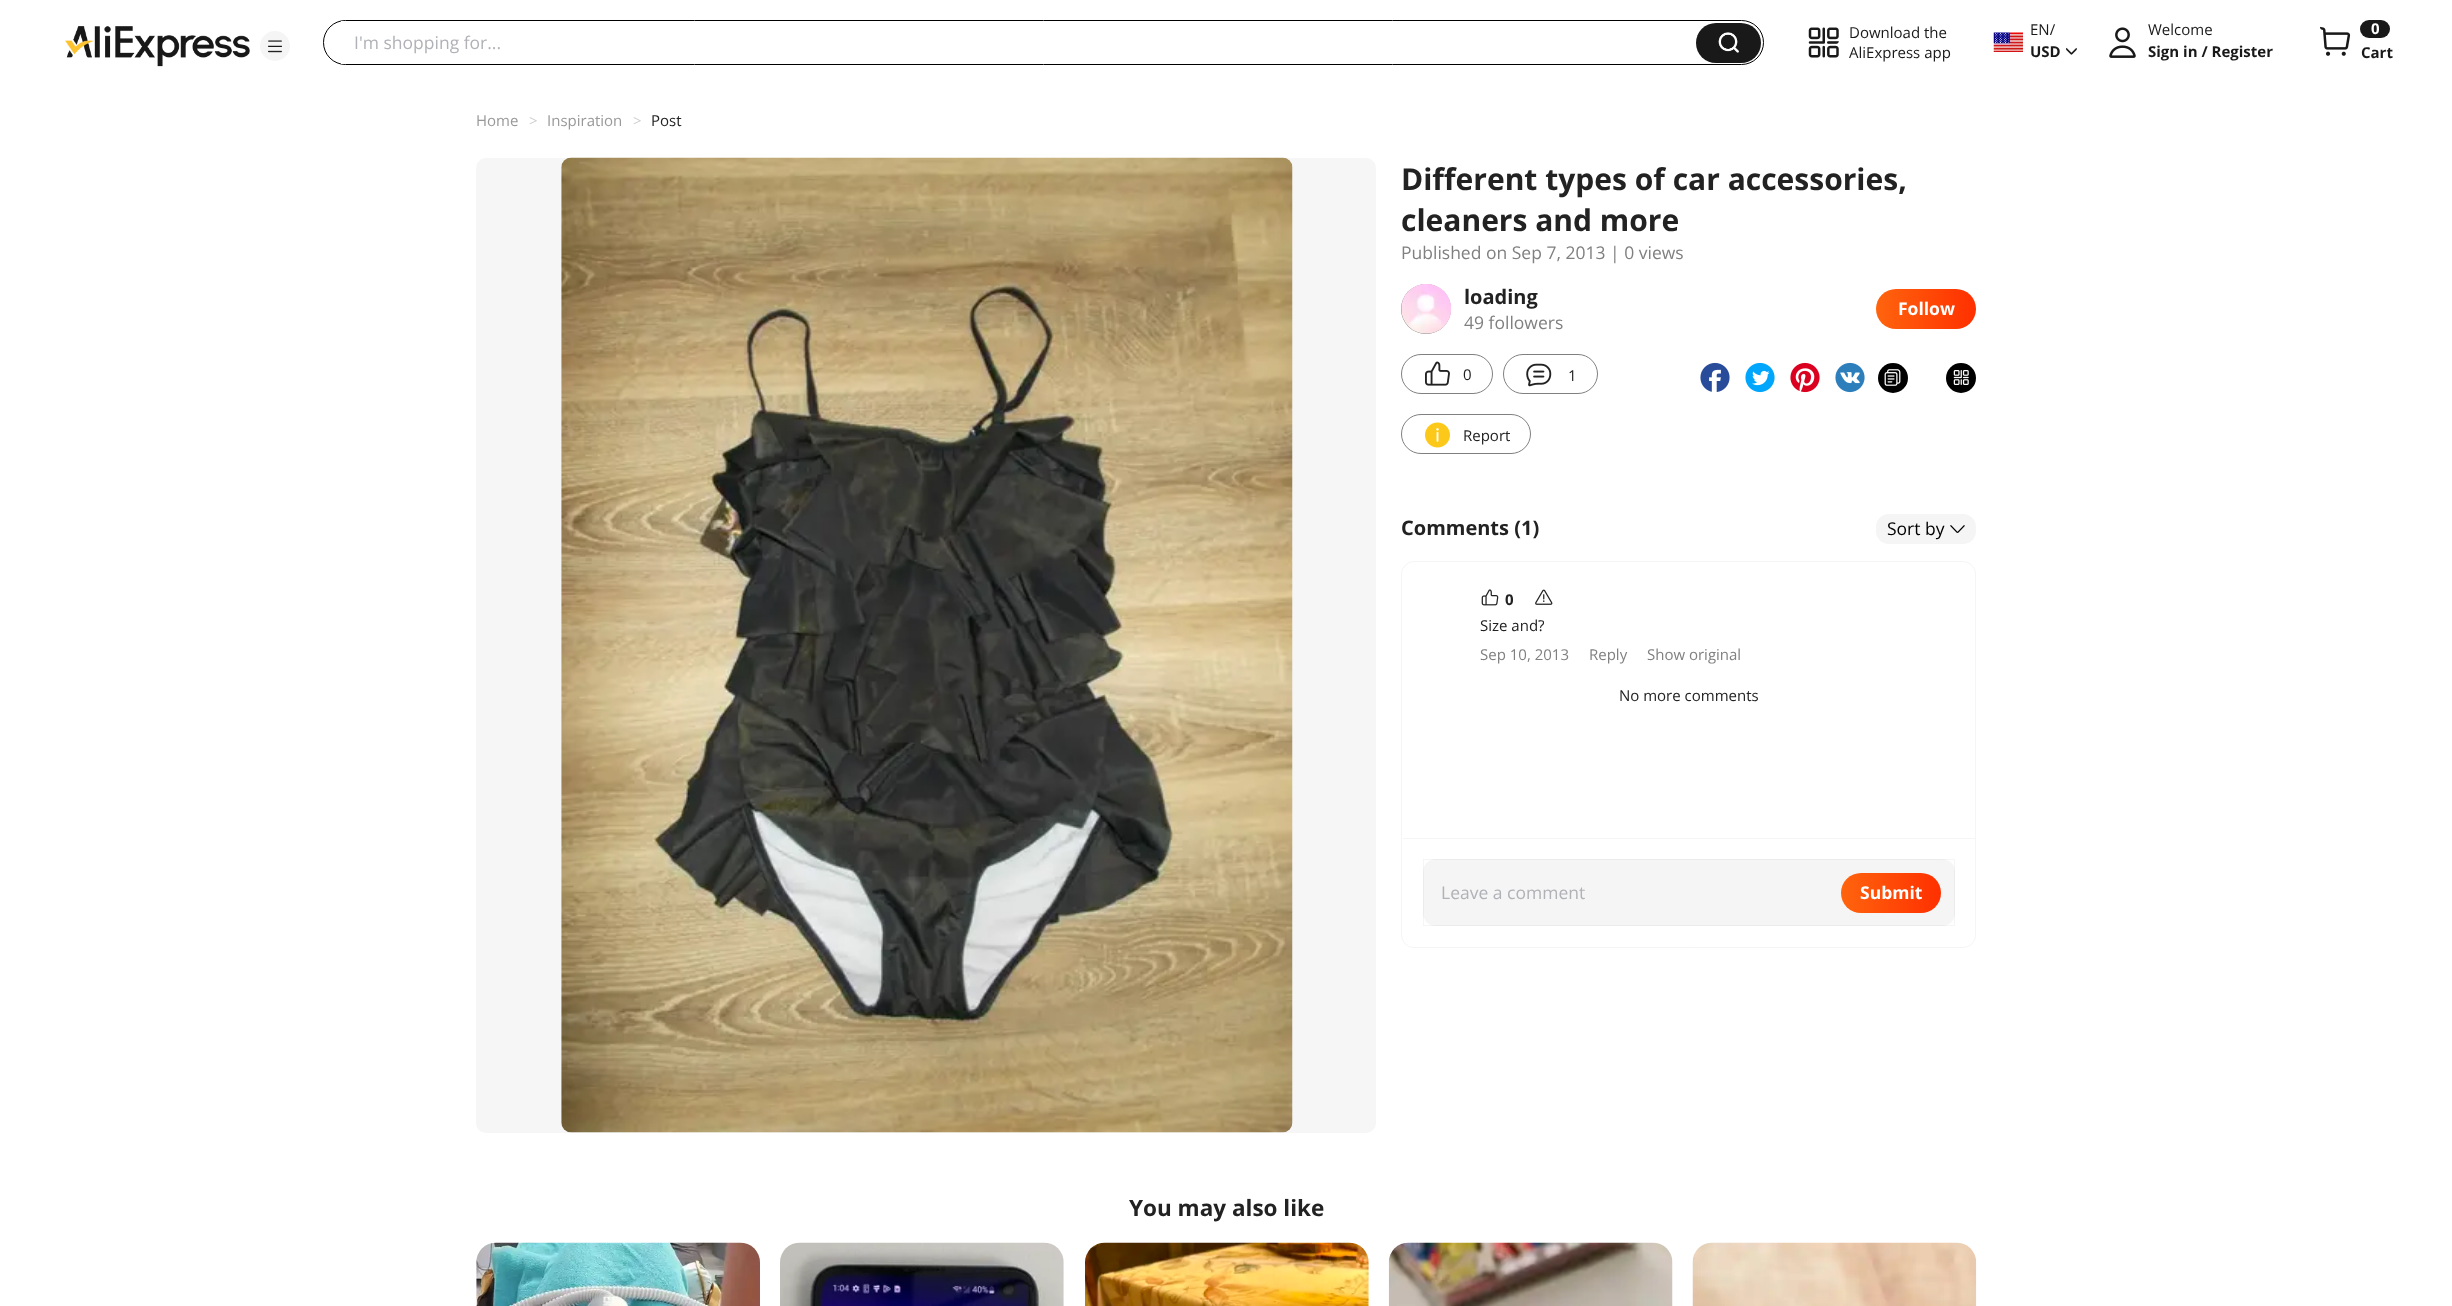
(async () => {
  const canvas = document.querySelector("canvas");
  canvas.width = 2452;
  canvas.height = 1306;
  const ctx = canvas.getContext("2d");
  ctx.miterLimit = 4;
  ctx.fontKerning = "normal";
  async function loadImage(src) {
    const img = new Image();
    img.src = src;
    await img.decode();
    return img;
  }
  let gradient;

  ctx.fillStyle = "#ffffff";
  ctx.fillRect(0, 0, 2452, 1306);
  ctx.drawImage(await loadImage("img/1.png"), 65, 26, 185, 41);
  ctx.fillStyle = "#f5f5f5";
  ctx.beginPath();
  ctx.arc(275, 46, 15, 0, Math.PI * 2);
  ctx.fill();
  ctx.drawImage(await loadImage("img/2.png"), 268, 40, 14, 13);
  ctx.beginPath();
  ctx.roundRect(323.5, 20.5, 1440, 44, 22);
  ctx.strokeStyle = "#000000";
  ctx.stroke();
  ctx.fillStyle = "#ffffff";
  ctx.fillRect(341, 21, 4, 43);
  ctx.fillStyle = "#191919";
  ctx.beginPath();
  ctx.roundRect(1696, 23, 65, 40, 20);
  ctx.fill();
  ctx.drawImage(await loadImage("img/3.png"), 1718, 32, 21, 21);
  ctx.drawImage(await loadImage("img/4.png"), 1808, 27, 31, 31);
  ctx.drawImage(await loadImage("img/5.png"), 1993, 32, 30, 20);
  ctx.drawImage(await loadImage("img/6.png"), 2066, 47, 11, 8);
  ctx.drawImage(await loadImage("img/7.png"), 2109, 27, 27, 31);
  ctx.drawImage(await loadImage("img/8.png"), 2320, 26, 31, 30);
  ctx.beginPath();
  ctx.roundRect(2360, 20, 30, 18, 9);
  ctx.fill();
  ctx.fillStyle = "#f6f6f6";
  ctx.beginPath();
  ctx.roundRect(476, 158, 900, 975, 10);
  ctx.fill();
  ctx.drawImage(await loadImage("img/9.png"), 561, 157, 732, 976);
  ctx.fillStyle = "#808080";
  ctx.beginPath();
  ctx.arc(1426, 309, 25, 0, Math.PI * 2);
  ctx.fill();
  ctx.drawImage(await loadImage("img/10.png"), 1401, 284, 50, 50);
  gradient = ctx.createLinearGradient(1876, 309, 1976, 309);
  gradient.addColorStop(0, "#ff640e");
  gradient.addColorStop(1, "#ff3000");
  ctx.fillStyle = gradient;
  ctx.beginPath();
  ctx.roundRect(1876, 289, 100, 40, 20);
  ctx.fill();
  ctx.beginPath();
  ctx.roundRect(1401.5, 354.5, 91, 39, 19.5);
  ctx.strokeStyle = "#808080";
  ctx.stroke();
  ctx.drawImage(await loadImage("img/11.png"), 1425, 361, 25, 25);
  ctx.beginPath();
  ctx.roundRect(1503.5, 354.5, 94, 39, 19.5);
  ctx.stroke();
  ctx.drawImage(await loadImage("img/12.png"), 1526, 363, 26, 24);
  ctx.beginPath();
  ctx.roundRect(1401.5, 414.5, 129, 39, 19.5);
  ctx.stroke();
  ctx.drawImage(await loadImage("img/13.png"), 1425, 422, 25, 26);
  ctx.drawImage(await loadImage("img/14.png"), 1700, 362, 30, 30);
  ctx.drawImage(await loadImage("img/15.png"), 1745, 362, 30, 31);
  ctx.drawImage(await loadImage("img/16.png"), 1790, 362, 30, 31);
  ctx.drawImage(await loadImage("img/17.png"), 1835, 362, 30, 31);
  ctx.fillStyle = "#000000";
  ctx.beginPath();
  ctx.arc(1893, 378, 15, 0, Math.PI * 2);
  ctx.fill();
  ctx.drawImage(await loadImage("img/18.png"), 1884, 369, 17, 17);
  ctx.beginPath();
  ctx.arc(1961, 378, 15, 0, Math.PI * 2);
  ctx.fill();
  ctx.drawImage(await loadImage("img/19.png"), 1953, 370, 16, 15);
  ctx.fillStyle = "#f5f5f5";
  ctx.beginPath();
  ctx.roundRect(1876, 514, 100, 30, 13);
  ctx.fill();
  ctx.drawImage(await loadImage("img/20.png"), 1950, 525, 15, 8);
  ctx.beginPath();
  ctx.roundRect(1401.5, 561.5, 574, 386, 12.5);
  ctx.strokeStyle = "#f5f5f5";
  ctx.stroke();
  ctx.drawImage(await loadImage("img/21.png"), 1481, 589, 18, 17);
  ctx.drawImage(await loadImage("img/22.png"), 1535, 589, 18, 16);
  ctx.fillRect(1403, 838, 572, 1);
  ctx.beginPath();
  ctx.roundRect(1423, 859, 532, 67, 13);
  ctx.fill();
  ctx.strokeStyle = "rgba(0, 0, 0, 0.04)";
  ctx.strokeRect(1423.5, 859.5, 531, 66);
  gradient = ctx.createLinearGradient(1841, 893, 1941, 893);
  gradient.addColorStop(0, "#ff640e");
  gradient.addColorStop(1, "#ff3000");
  ctx.fillStyle = gradient;
  ctx.beginPath();
  ctx.roundRect(1841, 873, 100, 40, 20);
  ctx.fill();
  ctx.drawImage(await loadImage("img/23.png"), 476, 1242, 284, 64);
  ctx.drawImage(await loadImage("img/24.png"), 780, 1242, 284, 64);
  ctx.drawImage(await loadImage("img/25.png"), 1085, 1242, 284, 64);
  ctx.drawImage(await loadImage("img/26.png"), 1388, 1242, 285, 64);
  ctx.drawImage(await loadImage("img/27.png"), 1692, 1242, 285, 64);
  ctx.font = "17.5px Open Sans";
  ctx.fillStyle = "#b0b2b7";
  ctx.fillText("I'm shopping for...", 354, 49);
  ctx.font = "15px Open Sans";
  ctx.fillStyle = "#191919";
  for (const [text, x, y] of [
    ["Download the", 1849, 38],
    ["AliExpress app", 1849, 58],
    ["EN/", 2030, 35],
  ]) {
    ctx.fillText(text, x, y);
  }
  ctx.font = "bold 15px Open Sans";
  ctx.fillText("USD", 2030, 57);
  ctx.font = "15px Open Sans";
  ctx.fillText("Welcome", 2148, 35);
  ctx.font = "bold 15px Open Sans";
  ctx.fillText("Sign in / Register", 2148, 57);
  ctx.fillStyle = "#ffffff";
  ctx.fillText("0", 2371, 34);
  ctx.fillStyle = "#191919";
  ctx.fillText("Cart", 2361, 58);
  ctx.font = "15px Open Sans";
  ctx.fillStyle = "#999999";
  ctx.fillText("Home", 476, 126);
  ctx.fillStyle = "#cccccc";
  ctx.fillText(">", 529, 126);
  ctx.fillStyle = "#999999";
  ctx.fillText("Inspiration", 547, 126);
  ctx.fillStyle = "#cccccc";
  ctx.fillText(">", 633, 126);
  ctx.fillStyle = "#222222";
  ctx.fillText("Post", 651, 126);
  ctx.font = "bold 30px Open Sans";
  ctx.fillText("Different types of car accessories,", 1401, 190);
  ctx.fillText("cleaners and more", 1401, 231);
  ctx.font = "17.5px Open Sans";
  ctx.fillStyle = "#808080";
  ctx.fillText("Published on Sep 7, 2013 | 0 views", 1401, 259);
  ctx.font = "bold 20px Open Sans";
  ctx.fillStyle = "#222222";
  ctx.fillText("loading", 1464, 304);
  ctx.font = "17.5px Open Sans";
  ctx.fillStyle = "#808080";
  ctx.fillText("49 followers", 1464, 329);
  ctx.font = "bold 17.5px Open Sans";
  ctx.fillStyle = "#ffffff";
  ctx.fillText("Follow", 1898, 315);
  ctx.font = "15px Open Sans";
  ctx.fillStyle = "#222222";
  for (const [text, x, y] of [
    ["0", 1463, 380],
    ["1", 1568, 381],
    ["Report", 1463, 441],
  ]) {
    ctx.fillText(text, x, y);
  }
  ctx.font = "bold 20px Open Sans";
  ctx.fillText("Comments (1)", 1401, 535);
  ctx.font = "17.5px Open Sans";
  ctx.fillStyle = "#000000";
  ctx.fillText("Sort by", 1887, 535);
  ctx.font = "bold 15px Open Sans";
  ctx.fillStyle = "#222222";
  ctx.fillText("0", 1505, 605);
  ctx.font = "15px Open Sans";
  ctx.fillText("Size and?", 1480, 631);
  ctx.fillStyle = "#808080";
  for (const [text, x, y] of [
    ["Sep 10, 2013", 1480, 660],
    ["Reply", 1589, 660],
    ["Show original", 1647, 660],
  ]) {
    ctx.fillText(text, x, y);
  }
  ctx.fillStyle = "#222222";
  ctx.fillText("No more comments", 1619, 701);
  ctx.font = "17.5px Open Sans";
  ctx.fillStyle = "#b0b2b7";
  ctx.fillText("Leave a comment", 1441, 899);
  ctx.font = "bold 17.5px Open Sans";
  ctx.fillStyle = "#ffffff";
  ctx.fillText("Submit", 1860, 899);
  ctx.font = "bold 22.5px Open Sans";
  ctx.fillStyle = "#222222";
  ctx.fillText("You may also like", 1129, 1216);
})();
